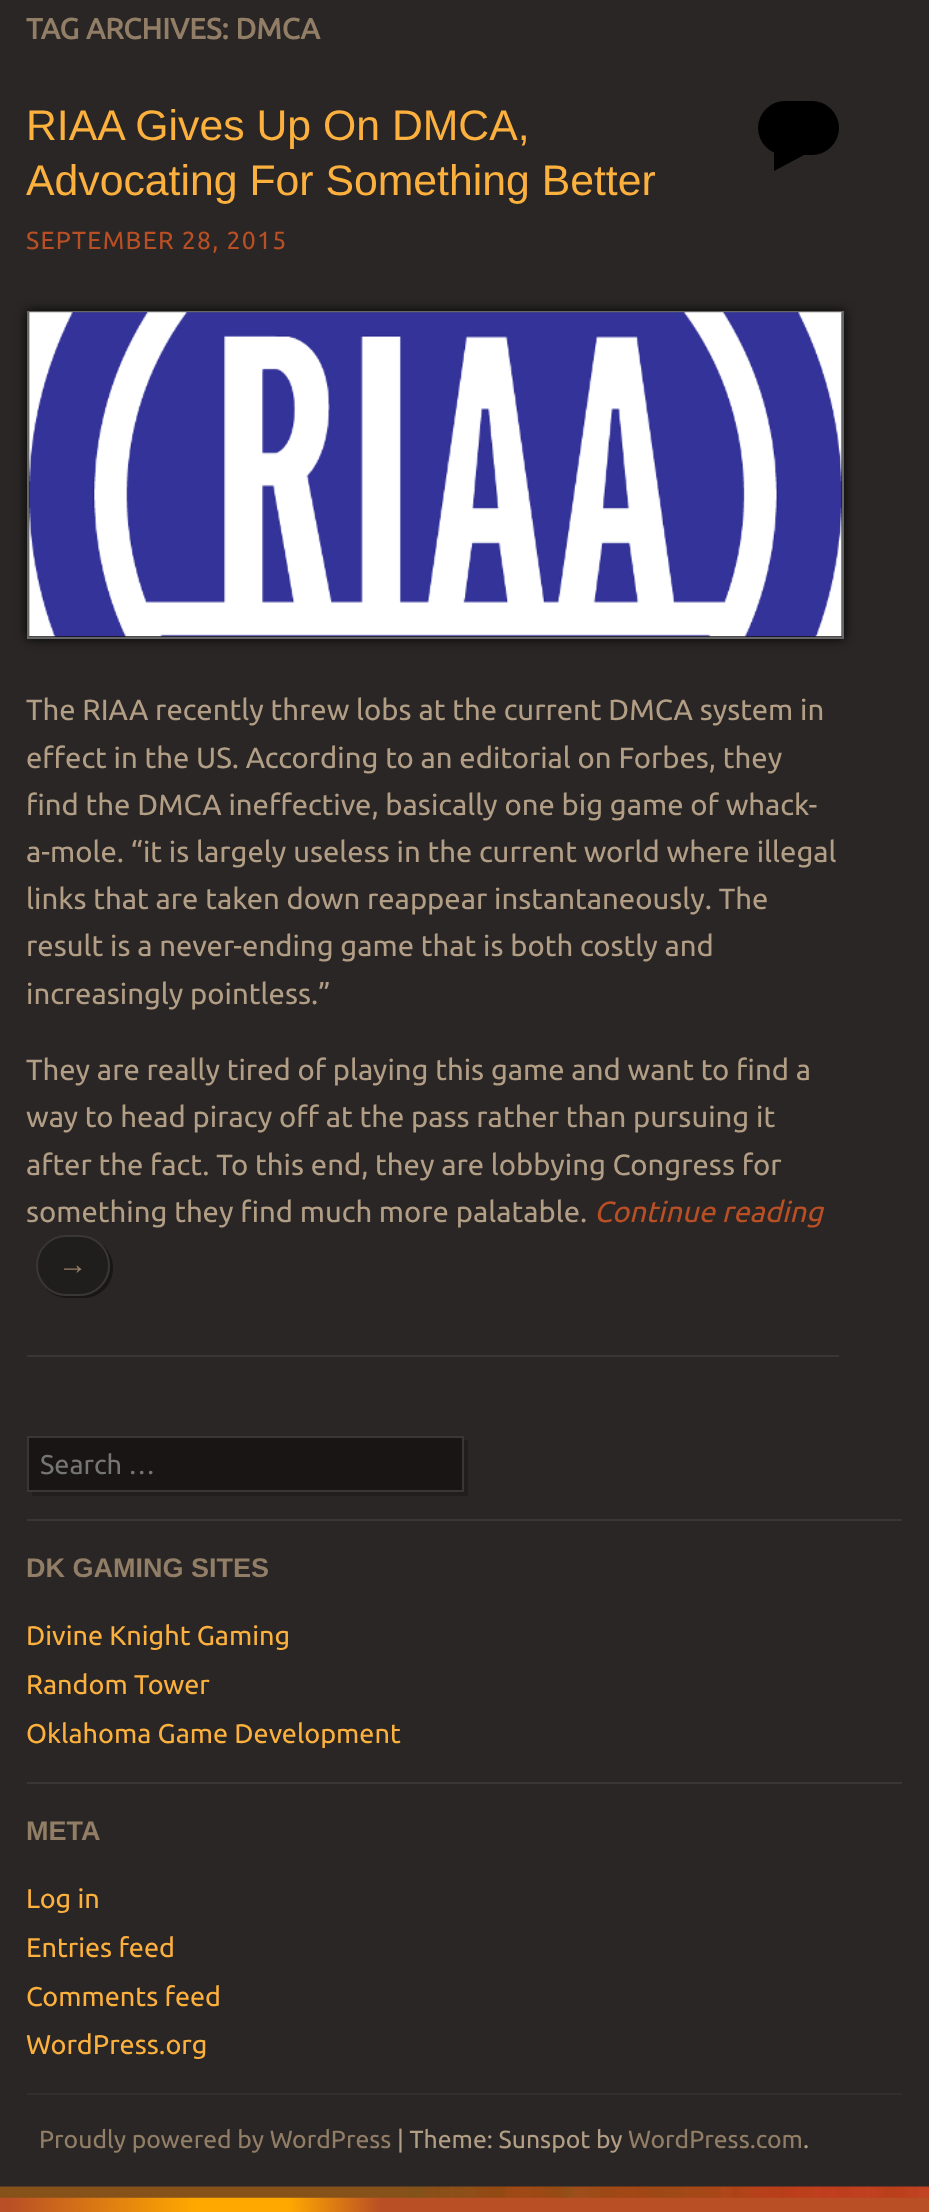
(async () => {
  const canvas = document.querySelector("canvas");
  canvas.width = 929;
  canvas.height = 2212;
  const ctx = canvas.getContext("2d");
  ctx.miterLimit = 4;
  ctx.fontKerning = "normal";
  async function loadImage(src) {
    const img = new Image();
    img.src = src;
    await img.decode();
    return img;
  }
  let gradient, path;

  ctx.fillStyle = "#292625";
  ctx.fillRect(0, 0, 929, 2212);
  ctx.fillStyle = "#393636";
  ctx.fillRect(27, 1355, 812, 2);
  ctx.fillStyle = "#000000";
  ctx.beginPath();
  ctx.roundRect(758, 101, 81, 54, 27);
  ctx.fill();
  path = new Path2D("M774 171V148H817Z");
  ctx.fill(path);
  ctx.fillStyle = "rgba(0, 0, 0, 0.9)";
  ctx.filter = "blur(5.5px)";
  ctx.beginPath();
  ctx.rect(27, 311, 817, 328);
  ctx.fill();
  ctx.filter = "none";
  ctx.fillStyle = "#120f10";
  ctx.beginPath();
  ctx.rect(28, 312, 815, 326);
  ctx.fill();
  ctx.strokeStyle = "#666666";
  ctx.lineWidth = 2;
  ctx.stroke();
  ctx.drawImage(await loadImage("img/1.png"), 29, 312, 813, 325);
  ctx.fillStyle = "#191716";
  path = new Path2D("M45 1287C50 1294 59 1298 68 1298H83C100 1298 113 1285 113 1268C113 1259 109 1250 102 1245C107 1250 110 1258 110 1266C110 1282 97 1296 80 1296H66C58 1296 50 1293 45 1287Z");
  ctx.fill(path);
  ctx.fillStyle = "rgba(0, 0, 0, 0.2)";
  ctx.beginPath();
  ctx.roundRect(37, 1236, 72, 59, 29.5);
  ctx.fill();
  ctx.strokeStyle = "#393636";
  ctx.stroke();
  ctx.fillStyle = "#211e1e";
  path = new Path2D("M32 1492V1496H468V1440H464V1492Z");
  ctx.fill(path);
  ctx.fillStyle = "#181514";
  ctx.beginPath();
  ctx.rect(28, 1437, 435, 54);
  ctx.fill();
  ctx.strokeStyle = "#393736";
  ctx.stroke();
  for (const [x, y, w, h, color] of [
    [27, 1519, 875, 2, "#393636"],
    [27, 1782, 875, 2, "#393636"],
    [27, 2093, 875, 2, "#302f2d"],
  ]) {
    ctx.fillStyle = color;
    ctx.fillRect(x, y, w, h);
  }
  gradient = ctx.createLinearGradient(0, 2201, 929, 2201);
  gradient.addColorStop(0.01, "#b94f25");
  gradient.addColorStop(0.21, "#ffa800");
  gradient.addColorStop(0.31, "#ffa800");
  gradient.addColorStop(0.41, "#b94f25");
  ctx.fillStyle = gradient;
  ctx.fillRect(0, 2197, 929, 15);
  ctx.drawImage(await loadImage("img/2.png"), 0, 2186, 929, 12);
  ctx.font = "bold 29.25px Ubuntu";
  ctx.fillStyle = "#927e66";
  ctx.fillText("TAG ARCHIVES: DMCA", 26, 39);
  ctx.font = "42.75px Liberation Sans";
  ctx.fillStyle = "#fcb03e";
  ctx.fillText("RIAA Gives Up On DMCA,", 26, 140);
  ctx.fillText("Advocating For Something Better", 26, 195);
  ctx.letterSpacing = "1.25px";
  ctx.font = "24.75px Ubuntu";
  ctx.fillStyle = "#b94f25";
  ctx.fillText("SEPTEMBER 28, 2015", 26, 249);
  ctx.letterSpacing = "0px";
  ctx.font = "29.25px Ubuntu";
  ctx.fillStyle = "#b29d85";
  for (const [text, x, y] of [
    ["The RIAA recently threw lobs at the current DMCA system in", 26, 720],
    ["effect in the US. According to an editorial on Forbes, they", 26, 768],
    ["find the DMCA ineffective, basically one big game of whack-", 26, 815],
    ["a-mole. “it is largely useless in the current world where illegal", 26, 862],
    ["links that are taken down reappear instantaneously. The", 26, 909],
    ["result is a never-ending game that is both costly and", 26, 956],
    ["increasingly pointless.”", 26, 1004],
    ["They are really tired of playing this game and want to find a", 26, 1080],
    ["way to head piracy off at the pass rather than pursuing it", 26, 1127],
    ["after the fact. To this end, they are lobbying Congress for", 26, 1175],
    ["something they find much more palatable.", 26, 1222],
  ]) {
    ctx.fillText(text, x, y);
  }
  ctx.font = "italic 29.25px Ubuntu";
  ctx.fillStyle = "#b94f25";
  ctx.fillText("Continue reading", 594, 1222);
  ctx.font = "29.25px Liberation Sans";
  ctx.fillStyle = "#927e66";
  ctx.fillText("→", 58, 1274);
  ctx.font = "27px Ubuntu";
  ctx.fillStyle = "#757575";
  ctx.fillText("Search …", 40, 1474);
  ctx.font = "bold 27px Liberation Sans";
  ctx.fillStyle = "#927e66";
  ctx.fillText("DK GAMING SITES", 26, 1577);
  ctx.font = "27px Ubuntu";
  ctx.fillStyle = "#fcb03e";
  for (const [text, x, y] of [
    ["Divine Knight Gaming", 26, 1645],
    ["Random Tower", 26, 1694],
    ["Oklahoma Game Development", 26, 1743],
  ]) {
    ctx.fillText(text, x, y);
  }
  ctx.font = "bold 27px Liberation Sans";
  ctx.fillStyle = "#927e66";
  ctx.fillText("META", 26, 1840);
  ctx.font = "27px Ubuntu";
  ctx.fillStyle = "#fcb03e";
  for (const [text, x, y] of [
    ["Log in", 26, 1908],
    ["Entries feed", 26, 1957],
    ["Comments feed", 26, 2006],
    ["WordPress.org", 26, 2054],
  ]) {
    ctx.fillText(text, x, y);
  }
  ctx.font = "24.75px Ubuntu";
  ctx.fillStyle = "#927e66";
  ctx.fillText("Proudly powered by WordPress", 39, 2148);
  ctx.fillStyle = "#b29d85";
  ctx.fillText("| Theme: Sunspot by", 397, 2148);
  ctx.fillStyle = "#927e66";
  ctx.fillText("WordPress.com", 628, 2148);
  ctx.fillStyle = "#b29d85";
  ctx.fillText(".", 803, 2148);
})();
